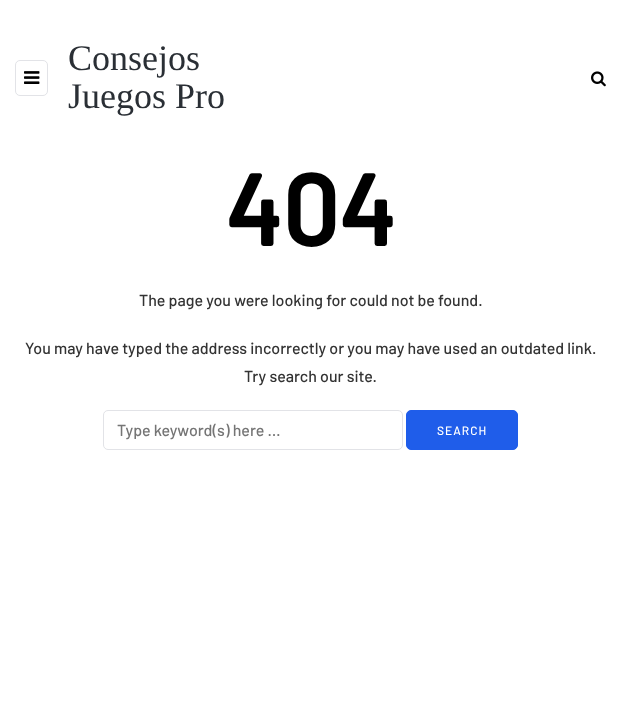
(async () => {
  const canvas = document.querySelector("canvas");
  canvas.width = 621;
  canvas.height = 704;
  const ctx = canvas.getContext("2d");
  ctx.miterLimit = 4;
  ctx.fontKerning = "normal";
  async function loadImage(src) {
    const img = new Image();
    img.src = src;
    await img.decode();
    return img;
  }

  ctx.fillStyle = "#ffffff";
  ctx.fillRect(0, 0, 621, 704);
  ctx.beginPath();
  ctx.roundRect(15.5, 60.5, 32, 35, 4.5);
  ctx.strokeStyle = "#e2e3e7";
  ctx.stroke();
  ctx.drawImage(await loadImage("img/1.png"), 24, 71, 16, 13);
  ctx.drawImage(await loadImage("img/2.png"), 591, 71, 15, 16);
  ctx.beginPath();
  ctx.roundRect(103.5, 410.5, 299, 39, 4.5);
  ctx.stroke();
  ctx.fillStyle = "#1f5dea";
  ctx.beginPath();
  ctx.roundRect(406.5, 410.5, 111, 39, 4.5);
  ctx.fill();
  ctx.strokeStyle = "#1f5dea";
  ctx.stroke();
  ctx.font = "36px Liberation Serif";
  ctx.fillStyle = "#2a2f35";
  ctx.fillText("Consejos", 68, 70);
  ctx.fillText("Juegos Pro", 68, 108);
  ctx.font = "bold 100px Barlow";
  ctx.fillStyle = "#000000";
  ctx.fillText("404", 225, 246);
  ctx.font = "500 16px Barlow";
  ctx.fillStyle = "#333333";
  for (const [text, x, y] of [
    ["The page you were looking for could not be found.", 139, 306],
    ["You may have typed the address incorrectly or you may have used an outdated link.", 25, 354],
    ["Try search our site.", 244, 382],
  ]) {
    ctx.fillText(text, x, y);
  }
  ctx.fillStyle = "#757575";
  ctx.fillText("Type keyword(s) here …", 117, 436);
  ctx.letterSpacing = "1px";
  ctx.font = "500 12px Barlow";
  ctx.fillStyle = "#ffffff";
  ctx.fillText("SEARCH", 437, 435);
})();
